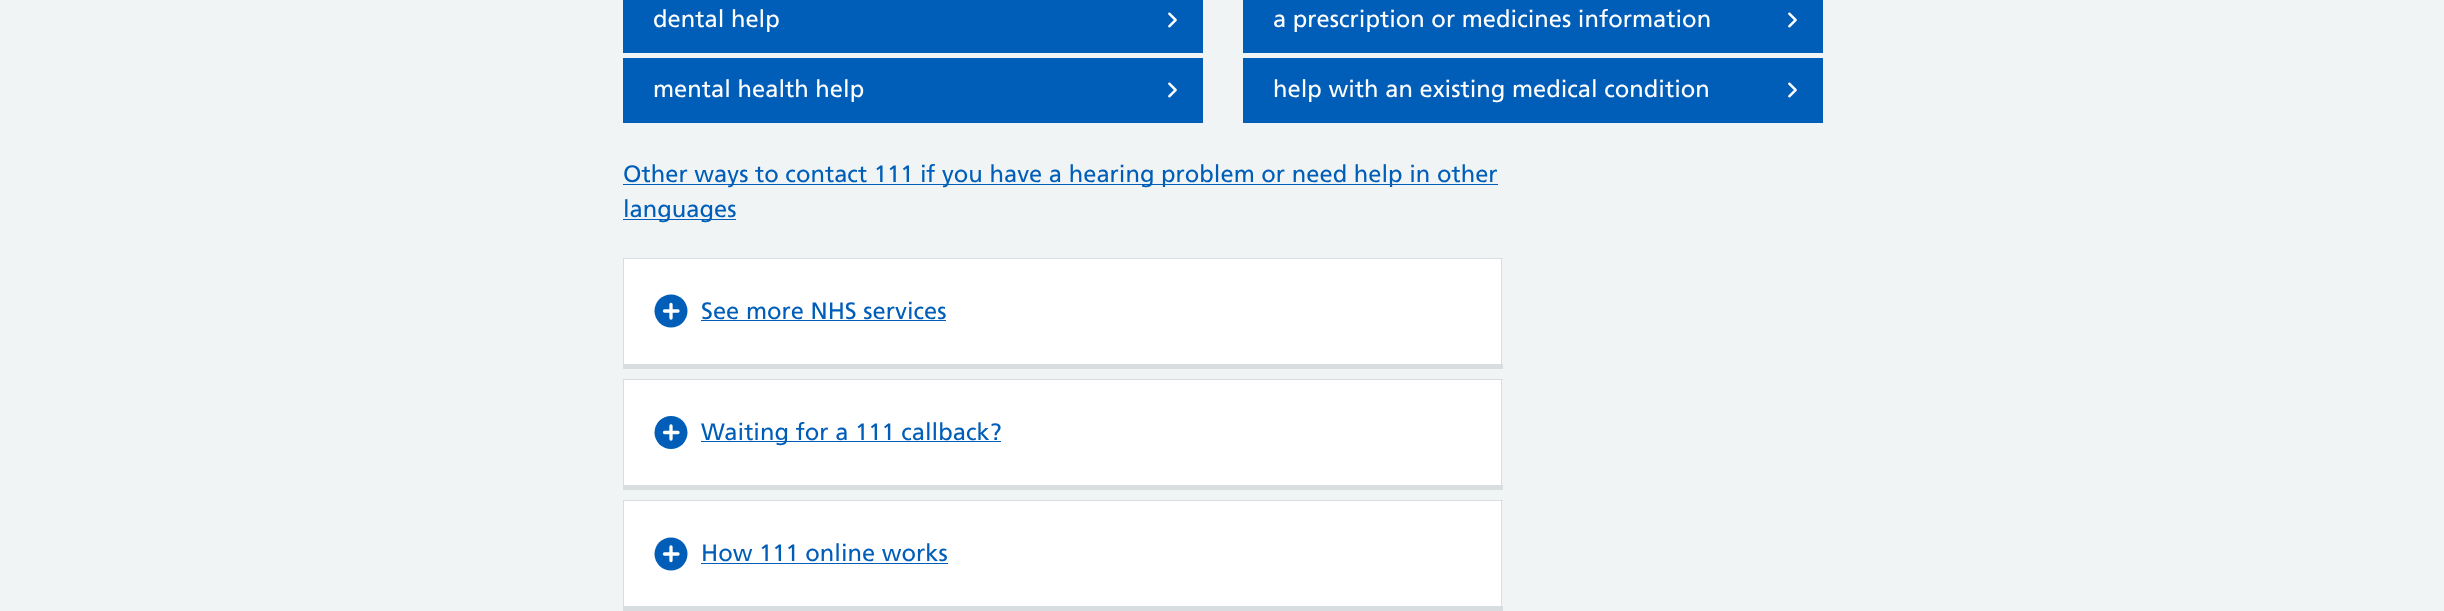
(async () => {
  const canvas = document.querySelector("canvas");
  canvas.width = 2444;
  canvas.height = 611;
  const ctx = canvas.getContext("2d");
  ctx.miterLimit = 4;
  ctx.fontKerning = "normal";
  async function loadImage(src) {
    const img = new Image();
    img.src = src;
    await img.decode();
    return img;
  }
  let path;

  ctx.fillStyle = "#f0f4f5";
  ctx.fillRect(0, 0, 2444, 611);
  ctx.fillStyle = "#005eb8";
  ctx.fillRect(623, 0, 580, 53);
  ctx.drawImage(await loadImage("img/1.png"), 1168, 12, 9, 16);
  ctx.fillRect(1243, 0, 580, 53);
  ctx.drawImage(await loadImage("img/1.png"), 1788, 12, 9, 16);
  ctx.fillRect(623, 58, 580, 65);
  ctx.drawImage(await loadImage("img/1.png"), 1168, 82, 9, 16);
  ctx.fillRect(1243, 58, 580, 65);
  ctx.drawImage(await loadImage("img/1.png"), 1788, 82, 9, 16);
  for (const [x, y, w, h, color] of [
    [623, 184, 875, 1, "#005eb8"],
    [623, 219, 113, 1, "#005eb8"],
    [624, 259, 877, 105, "#ffffff"],
    [623, 258, 880, 1, "#d8dde0"],
    [1501, 258, 1, 111, "#d8dde0"],
    [623, 364, 880, 5, "#d8dde0"],
    [623, 258, 1, 111, "#d8dde0"],
  ]) {
    ctx.fillStyle = color;
    ctx.fillRect(x, y, w, h);
  }
  ctx.fillStyle = "#005eb8";
  ctx.beginPath();
  ctx.arc(671, 311, 16.5, 0, Math.PI * 2);
  ctx.fill();
  path = new Path2D("M671 304.5V318M664.5 311H678");
  ctx.strokeStyle = "#ffffff";
  ctx.lineWidth = 3.3;
  ctx.lineCap = "round";
  ctx.stroke(path);
  for (const [x, y, w, h, color] of [
    [701, 320, 245, 1, "#005eb8"],
    [624, 380, 877, 105, "#ffffff"],
    [623, 379, 880, 1, "#d8dde0"],
    [1501, 379, 1, 111, "#d8dde0"],
    [623, 485, 880, 5, "#d8dde0"],
    [623, 379, 1, 111, "#d8dde0"],
  ]) {
    ctx.fillStyle = color;
    ctx.fillRect(x, y, w, h);
  }
  ctx.fillStyle = "#005eb8";
  ctx.beginPath();
  ctx.arc(671, 432.5, 16.5, 0, Math.PI * 2);
  ctx.fill();
  path = new Path2D("M671 426V439M664.5 432.5H678");
  ctx.stroke(path);
  for (const [x, y, w, h, color] of [
    [701, 441, 300, 1, "#005eb8"],
    [624, 501, 877, 105, "#ffffff"],
    [623, 500, 880, 1, "#d8dde0"],
    [1501, 500, 1, 111, "#d8dde0"],
    [623, 606, 880, 5, "#d8dde0"],
    [623, 500, 1, 111, "#d8dde0"],
  ]) {
    ctx.fillStyle = color;
    ctx.fillRect(x, y, w, h);
  }
  ctx.fillStyle = "#005eb8";
  ctx.beginPath();
  ctx.arc(671, 554, 16.5, 0, Math.PI * 2);
  ctx.fill();
  path = new Path2D("M671 547V560.5M664.5 554H678");
  ctx.stroke(path);
  ctx.fillRect(701, 563, 247, 1);
  ctx.font = "23.75px Frutiger";
  ctx.fillStyle = "#ffffff";
  for (const [text, x, y] of [
    ["dental help", 653, 27],
    ["a prescription or medicines information", 1273, 27],
    ["mental health help", 653, 97],
    ["help with an existing medical condition", 1273, 97],
  ]) {
    ctx.fillText(text, x, y);
  }
  ctx.fillStyle = "#005eb8";
  for (const [text, x, y] of [
    ["Other ways to contact 111 if you have a hearing problem or need help in other", 623, 182],
    ["languages", 623, 217],
    ["See more NHS services", 701, 319],
    ["Waiting for a 111 callback?", 701, 440],
    ["How 111 online works", 701, 561],
  ]) {
    ctx.fillText(text, x, y);
  }
})();
